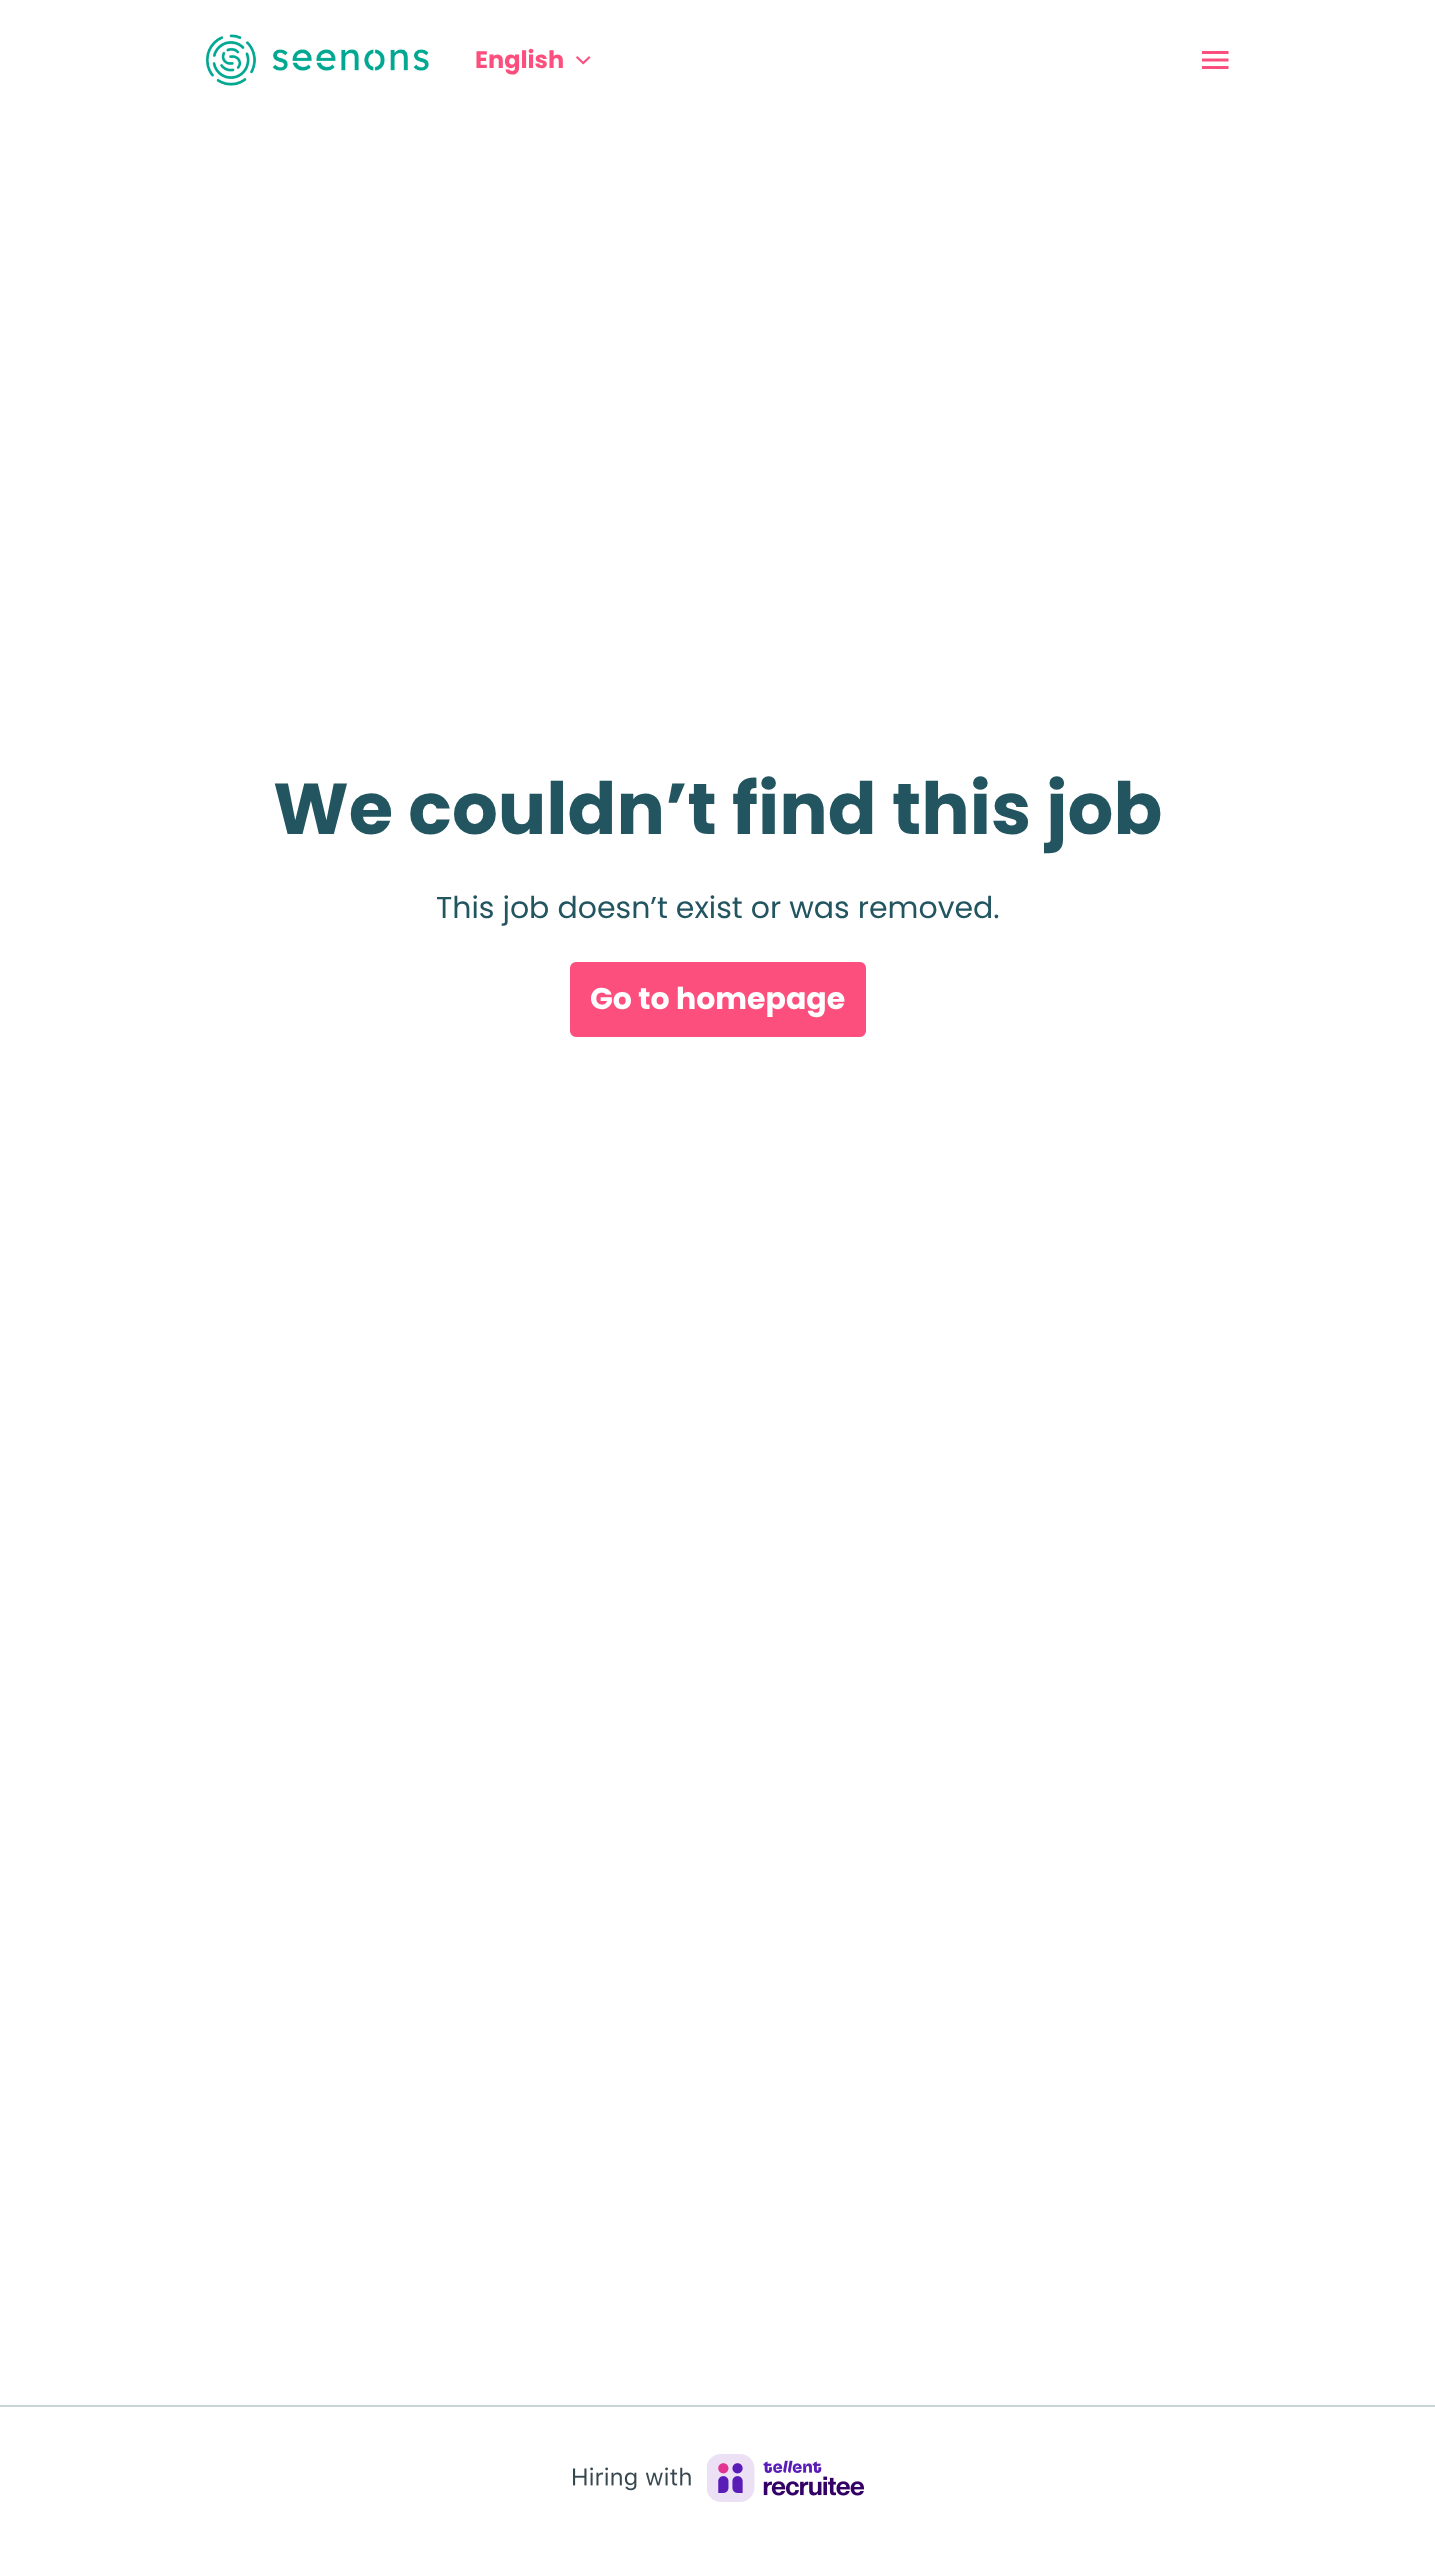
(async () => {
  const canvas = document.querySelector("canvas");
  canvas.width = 1435;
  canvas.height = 2549;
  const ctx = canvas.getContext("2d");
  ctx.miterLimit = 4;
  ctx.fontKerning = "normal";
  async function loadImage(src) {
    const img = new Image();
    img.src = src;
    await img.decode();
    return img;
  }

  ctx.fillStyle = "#ffffff";
  ctx.fillRect(0, 0, 1435, 2549);
  ctx.drawImage(await loadImage("img/1.png"), 205, 34, 224, 52);
  ctx.drawImage(await loadImage("img/2.png"), 576, 56, 15, 9);
  ctx.drawImage(await loadImage("img/3.png"), 1202, 51, 27, 18);
  ctx.fillStyle = "#fc4f7d";
  ctx.beginPath();
  ctx.roundRect(571, 963, 294, 73, 5);
  ctx.fill();
  ctx.strokeStyle = "#fc4f7d";
  ctx.lineWidth = 2;
  ctx.stroke();
  ctx.fillStyle = "#c8d5d8";
  ctx.fillRect(0, 2405, 1435, 2);
  ctx.drawImage(await loadImage("img/4.png"), 573, 2454, 291, 48);
  ctx.font = "bold 24px Poppins";
  ctx.fillStyle = "#fc4f7d";
  ctx.fillText("English", 475, 68);
  ctx.font = "bold 72px Poppins";
  ctx.fillStyle = "#235561";
  ctx.fillText("We couldn’t find this job", 273, 834);
  ctx.font = "30px Poppins";
  ctx.fillText("This job doesn’t exist or was removed.", 436, 918);
  ctx.font = "bold 30px Poppins";
  ctx.fillStyle = "#ffffff";
  ctx.fillText("Go to homepage", 590, 1009);
})();
